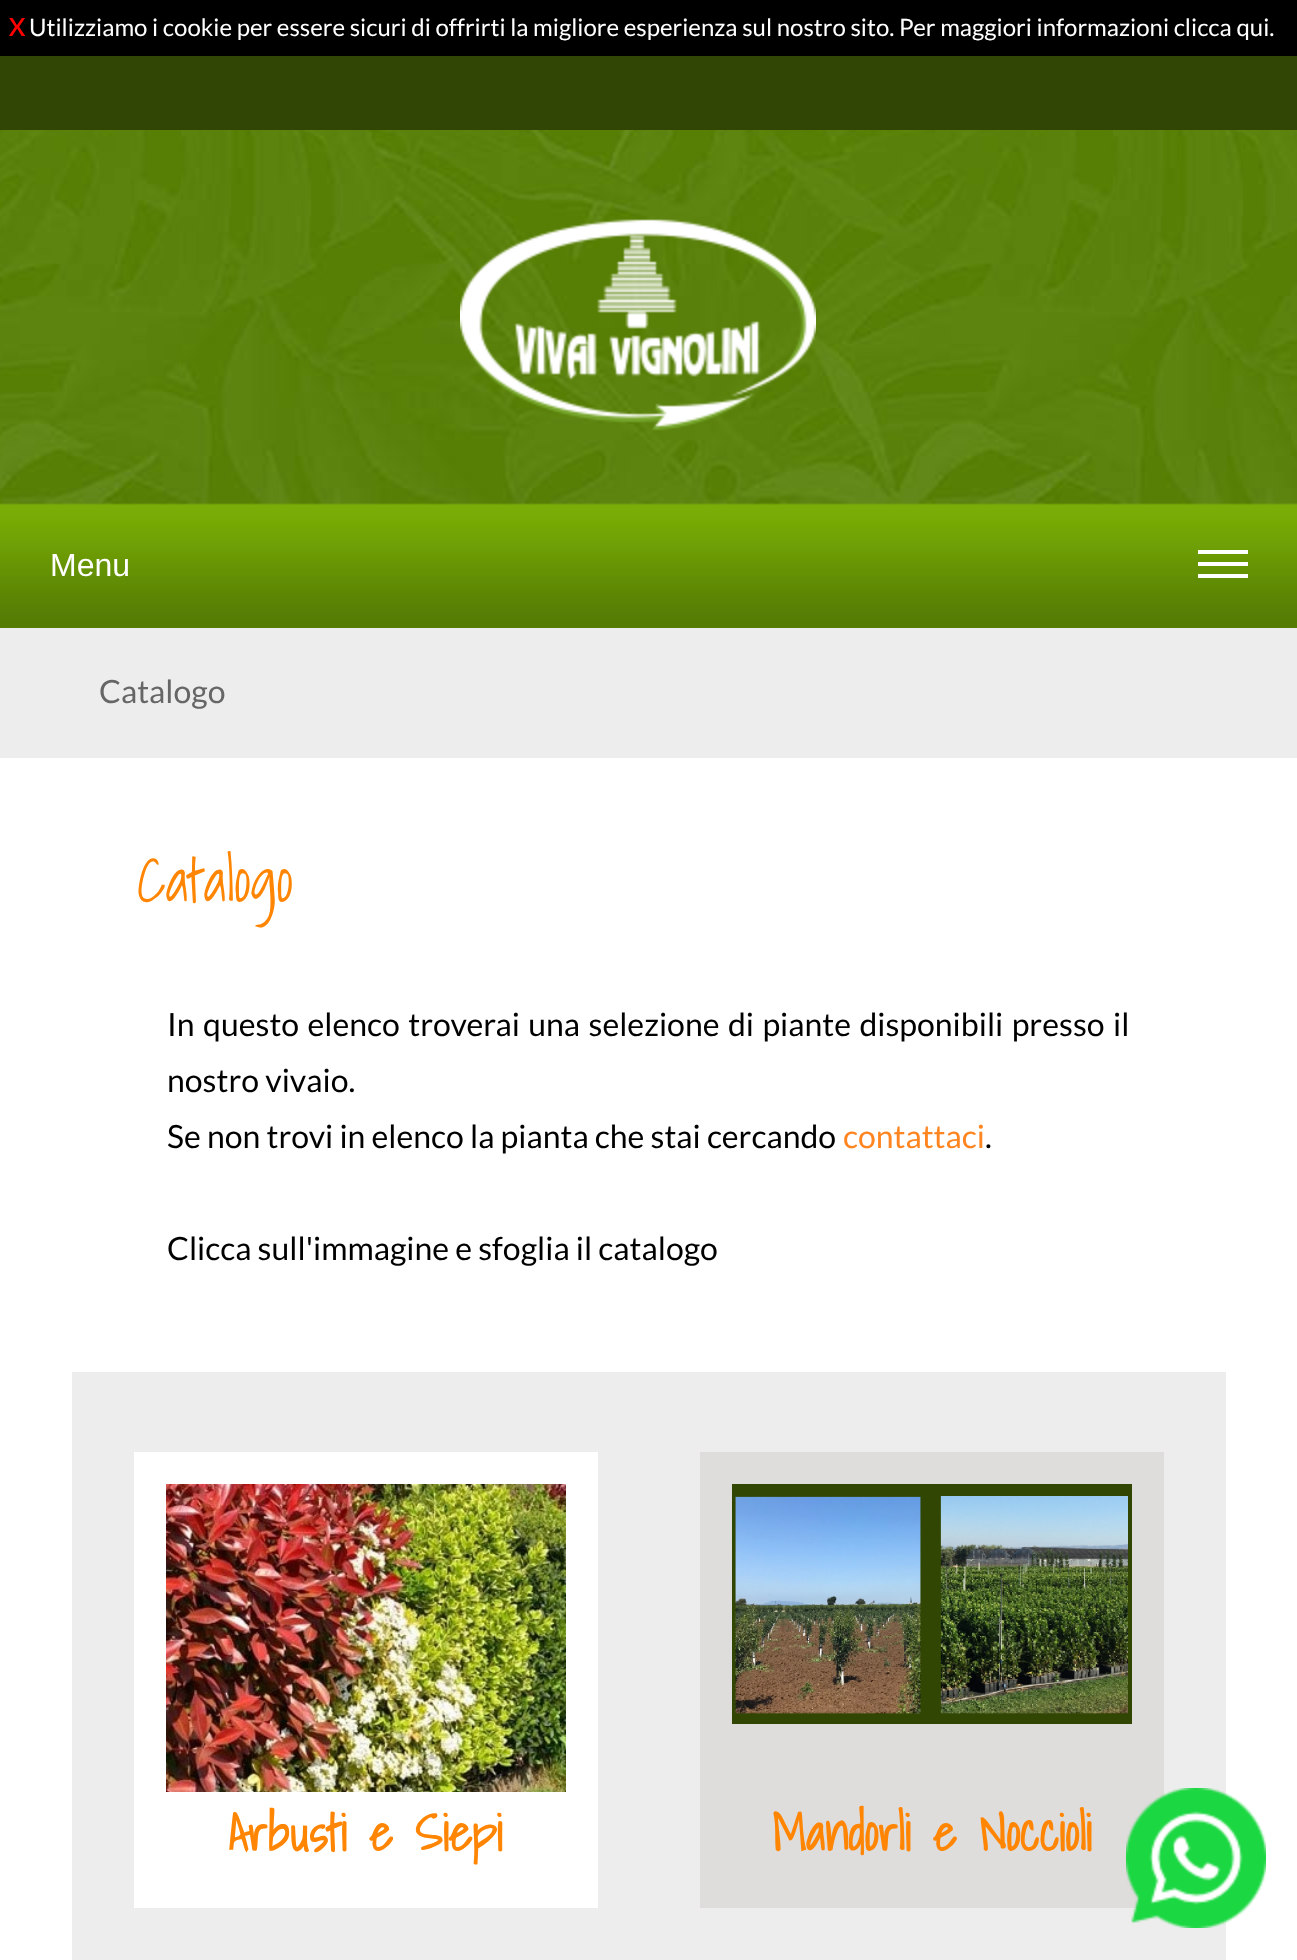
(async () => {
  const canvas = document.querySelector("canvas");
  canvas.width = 1297;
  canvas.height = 1960;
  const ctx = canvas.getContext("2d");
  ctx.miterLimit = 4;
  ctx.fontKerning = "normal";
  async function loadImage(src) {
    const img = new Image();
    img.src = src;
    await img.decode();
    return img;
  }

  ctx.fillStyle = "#ffffff";
  ctx.fillRect(0, 0, 1297, 1960);
  ctx.fillStyle = "#000000";
  ctx.fillRect(0, 0, 1297, 56);
  ctx.drawImage(await loadImage("img/1.png"), 0, 130, 1297, 498);
  ctx.fillStyle = "#314604";
  ctx.fillRect(0, 56, 1297, 74);
  ctx.drawImage(await loadImage("img/2.png"), 460, 219, 356, 212);
  for (const [x, y, w, h, color] of [
    [1198, 550, 50, 4, "#ffffff"],
    [1198, 562, 50, 4, "#ffffff"],
    [1198, 574, 50, 4, "#ffffff"],
    [0, 628, 1297, 130, "#ededed"],
    [72, 1372, 1154, 588, "#ededed"],
    [134, 1452, 464, 456, "#ffffff"],
  ]) {
    ctx.fillStyle = color;
    ctx.fillRect(x, y, w, h);
  }
  ctx.drawImage(await loadImage("img/3.png"), 166, 1484, 400, 308);
  ctx.fillStyle = "#dfdcdc";
  ctx.fillRect(700, 1452, 464, 456);
  ctx.drawImage(await loadImage("img/4.png"), 732, 1484, 400, 240);
  ctx.drawImage(await loadImage("img/5.png"), 1126, 1788, 140, 140);
  ctx.font = "bold 24px Lato";
  ctx.fillStyle = "#ff0000";
  ctx.fillText("X", 9, 36);
  ctx.font = "24px Lato";
  ctx.fillStyle = "#ffffff";
  ctx.fillText("Utilizziamo i cookie per essere sicuri di offrirti la migliore esperienza sul nostro sito. Per maggiori informazioni clicca qui.", 29, 36);
  ctx.font = "32px Liberation Sans";
  ctx.fillText("Menu", 50, 576);
  ctx.font = "32px Lato";
  ctx.fillStyle = "#666666";
  ctx.fillText("Catalogo", 99, 703);
  ctx.font = "300 60px Shadows Into Light";
  ctx.fillStyle = "#ff8502";
  ctx.fillText("Catalogo", 137, 902);
  ctx.wordSpacing = "2.25px";
  ctx.font = "32px Lato";
  ctx.fillStyle = "#000000";
  ctx.fillText("In questo elenco troverai una selezione di piante disponibili presso il", 167, 1036);
  ctx.wordSpacing = "0px";
  ctx.fillText("nostro vivaio.", 167, 1092);
  ctx.fillText("Se non trovi in elenco la pianta che stai cercando", 167, 1148);
  ctx.fillStyle = "#ff8521";
  ctx.fillText("contattaci", 843, 1148);
  ctx.fillStyle = "#000000";
  ctx.fillText(".", 985, 1148);
  ctx.fillText("Clicca sull'immagine e sfoglia il catalogo", 167, 1260);
  ctx.font = "bold 50px Shadows Into Light";
  ctx.fillStyle = "#ff8502";
  ctx.fillText("Arbusti e Siepi", 228, 1851);
  ctx.fillText("Mandorli e Noccioli", 772, 1851);
})();
